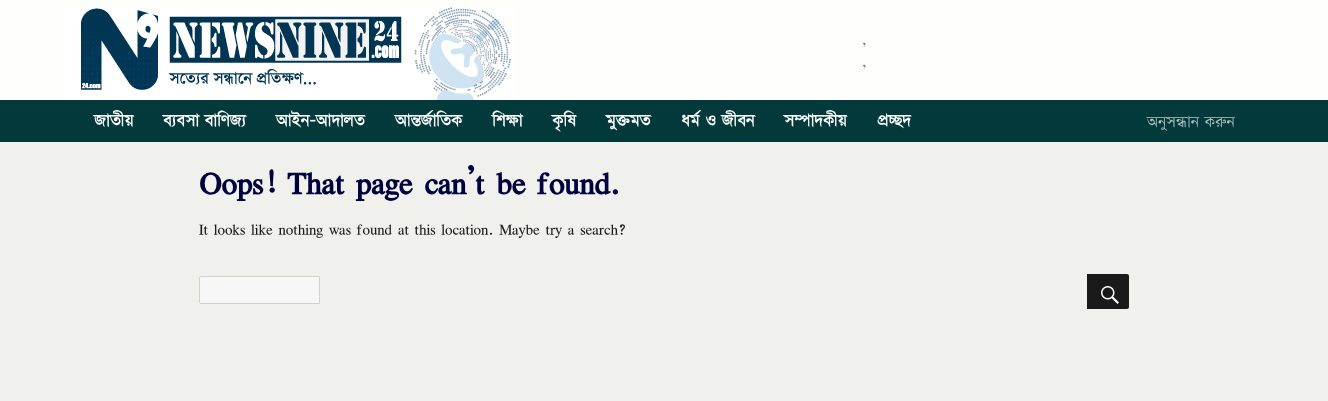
(async () => {
  const canvas = document.querySelector("canvas");
  canvas.width = 1328;
  canvas.height = 401;
  const ctx = canvas.getContext("2d");
  ctx.miterLimit = 4;
  ctx.fontKerning = "normal";
  async function loadImage(src) {
    const img = new Image();
    img.src = src;
    await img.decode();
    return img;
  }

  ctx.fillStyle = "#f0f0ed";
  ctx.fillRect(0, 0, 1328, 401);
  ctx.fillStyle = "#fefffb";
  ctx.fillRect(0, 0, 1328, 100);
  ctx.fillStyle = "#000000";
  ctx.filter = "blur(0.5px)";
  ctx.beginPath();
  ctx.rect(0, 100, 1328, 42);
  ctx.fill();
  ctx.filter = "none";
  ctx.drawImage(await loadImage("img/1.png"), 64, 7, 450, 93);
  ctx.fillStyle = "#02393b";
  ctx.fillRect(0, 100, 1328, 42);
  ctx.fillStyle = "#f7f7f7";
  ctx.beginPath();
  ctx.roundRect(199.5, 276.5, 120, 27, [1.5, 0, 0, 1.5]);
  ctx.fill();
  ctx.strokeStyle = "#d1d1d1";
  ctx.stroke();
  ctx.fillStyle = "#1a1a1a";
  ctx.beginPath();
  ctx.roundRect(1087, 274, 42, 35, [0, 2, 2, 0]);
  ctx.fill();
  ctx.drawImage(await loadImage("img/2.png"), 1101, 286, 18, 18);
  ctx.font = "15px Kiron";
  ctx.fillStyle = "#666666";
  ctx.fillText(",", 862, 44);
  ctx.fillText(",", 862, 66);
  ctx.font = "bold 17px Kiron";
  ctx.fillStyle = "#ffffff";
  for (const [text, x, y] of [
    ["জাতীয়", 94, 126],
    ["ব্যবসা বাণিজ্য", 163, 126],
    ["আইন-আদালত", 276, 126],
    ["আন্তর্জাতিক", 395, 126],
    ["শিক্ষা", 492, 126],
    ["কৃষি", 552, 126],
    ["মুক্তমত", 606, 126],
    ["ধর্ম ও জীবন", 681, 126],
    ["সম্পাদকীয়", 784, 126],
    ["প্রচ্ছদ", 877, 126],
  ]) {
    ctx.fillText(text, x, y);
  }
  ctx.font = "16px Kiron";
  ctx.fillStyle = "#b3c4c4";
  ctx.fillText("অনুসন্ধান করুন", 1147, 127);
  ctx.font = "bold 35px Kiron";
  ctx.fillStyle = "#00003f";
  ctx.fillText("Oops! That page can’t be found.", 199, 193);
  ctx.font = "17px Kiron";
  ctx.fillStyle = "#1a1a1a";
  ctx.fillText("It looks like nothing was found at this location. Maybe try a search?", 199, 234);
})();
